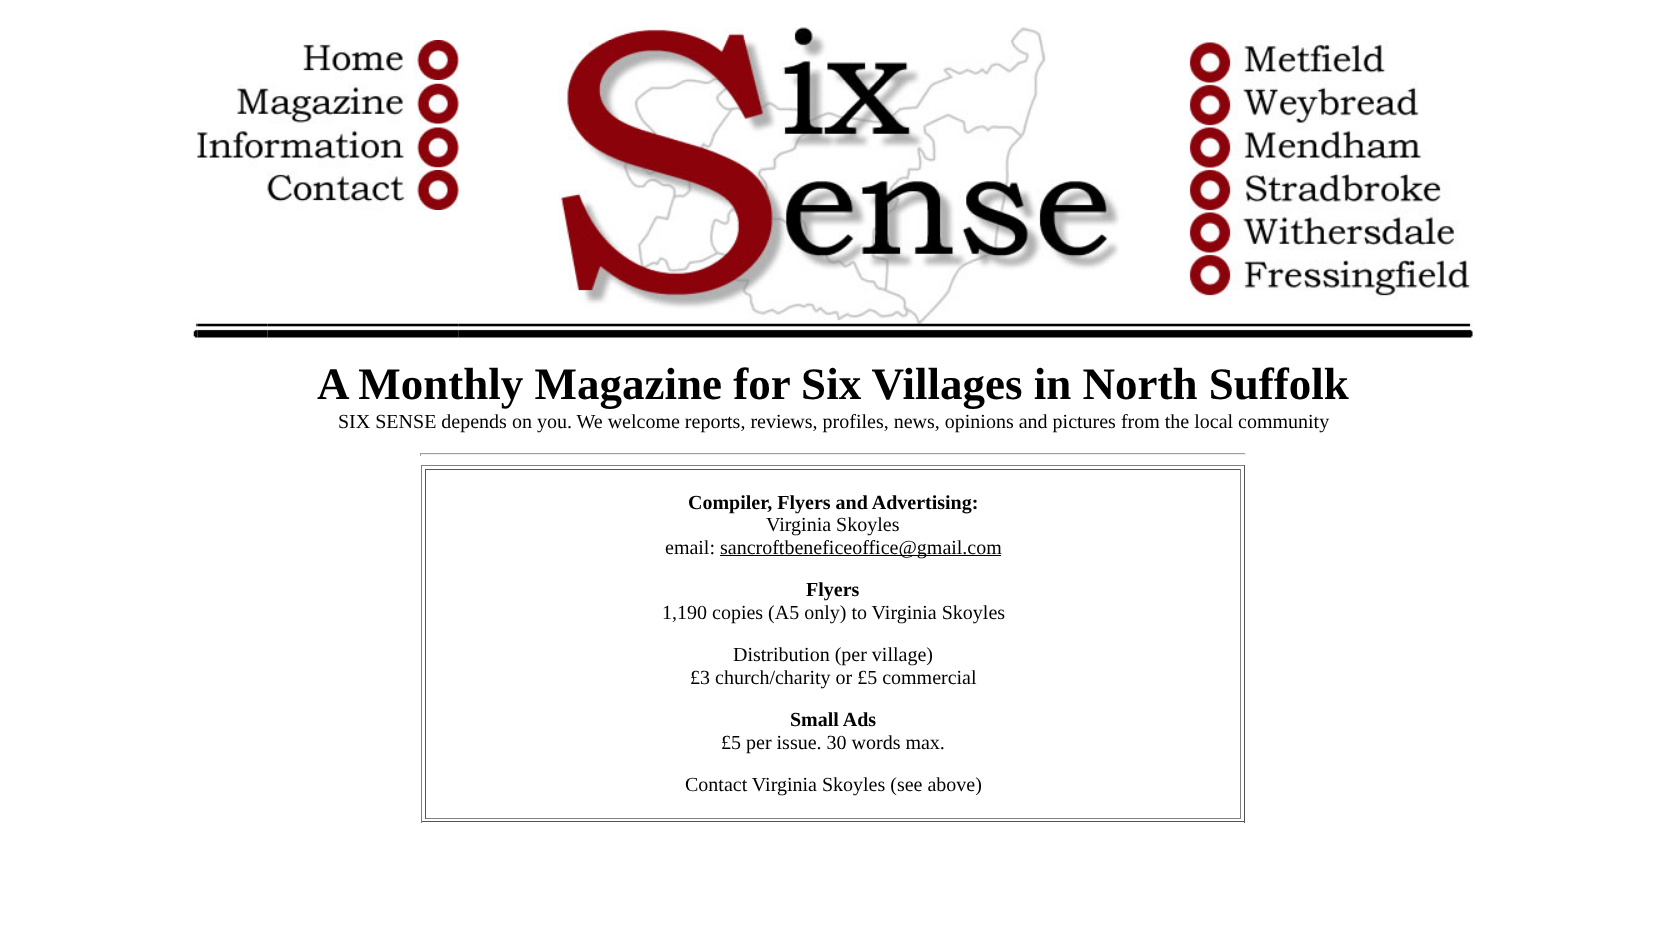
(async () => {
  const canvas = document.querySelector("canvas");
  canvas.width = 1666;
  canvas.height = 949;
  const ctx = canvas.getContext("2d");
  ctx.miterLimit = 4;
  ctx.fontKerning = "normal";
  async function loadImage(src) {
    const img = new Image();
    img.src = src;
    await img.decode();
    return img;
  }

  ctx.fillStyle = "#ffffff";
  ctx.fillRect(0, 0, 1666, 949);
  ctx.drawImage(await loadImage("img/1.png"), 605, 27, 439, 13);
  ctx.drawImage(await loadImage("img/2.png"), 303, 40, 156, 40);
  ctx.drawImage(await loadImage("img/3.png"), 458, 40, 1015, 298);
  ctx.drawImage(await loadImage("img/4.png"), 237, 83, 222, 41);
  ctx.fillStyle = "rgba(255, 255, 255, 0.25)";
  ctx.fillRect(430, 123, 16, 1);
  ctx.drawImage(await loadImage("img/5.png"), 197, 127, 262, 41);
  ctx.drawImage(await loadImage("img/6.png"), 193, 318, 5, 20);
  ctx.fillStyle = "rgba(255, 255, 255, 0.5)";
  ctx.fillRect(429, 167, 18, 1);
  ctx.drawImage(await loadImage("img/7.png"), 267, 170, 192, 40);
  ctx.drawImage(await loadImage("img/8.png"), 197, 323, 71, 15);
  ctx.drawImage(await loadImage("img/9.png"), 267, 323, 192, 15);
  for (const [x, y, w, h, color] of [
    [420, 453, 826, 1, "#9f9f9f"],
    [1245, 453, 1, 3, "#eeeeee"],
    [420, 454, 826, 1, "#eeeeee"],
    [420, 453, 1, 3, "#9f9f9f"],
    [421, 465, 824, 1, "#808080"],
    [1244, 465, 1, 358, "#555555"],
    [421, 821, 824, 1, "#555555"],
    [421, 465, 1, 358, "#808080"],
    [425, 469, 816, 1, "#555555"],
    [1240, 469, 1, 350, "#808080"],
    [425, 818, 816, 1, "#808080"],
    [425, 469, 1, 350, "#555555"],
    [720, 555, 281, 1, "#000000"],
  ]) {
    ctx.fillStyle = color;
    ctx.fillRect(x, y, w, h);
  }
  ctx.font = "bold 45px Liberation Serif";
  ctx.fillText("A Monthly Magazine for Six Villages in North Suffolk", 317, 399);
  ctx.font = "20px Liberation Serif";
  ctx.fillText("SIX SENSE depends on you. We welcome reports, reviews, profiles, news, opinions and pictures from the local community", 338, 428);
  ctx.font = "bold 20px Liberation Serif";
  ctx.fillText("Compiler, Flyers and Advertising:", 688, 509);
  ctx.font = "20px Liberation Serif";
  for (const [text, x, y] of [
    ["Virginia Skoyles", 766, 531],
    ["email:", 665, 554],
    ["sancroftbeneficeoffice@gmail.com", 720, 554],
  ]) {
    ctx.fillText(text, x, y);
  }
  ctx.font = "bold 20px Liberation Serif";
  ctx.fillText("Flyers", 806, 596);
  ctx.font = "20px Liberation Serif";
  for (const [text, x, y] of [
    ["1,190 copies (A5 only) to Virginia Skoyles", 662, 619],
    ["Distribution (per village)", 733, 661],
    ["£3 church/charity or £5 commercial", 690, 684],
  ]) {
    ctx.fillText(text, x, y);
  }
  ctx.font = "bold 20px Liberation Serif";
  ctx.fillText("Small Ads", 790, 726);
  ctx.font = "20px Liberation Serif";
  ctx.fillText("£5 per issue. 30 words max.", 721, 749);
  ctx.fillText("Contact Virginia Skoyles (see above)", 685, 791);
})();
